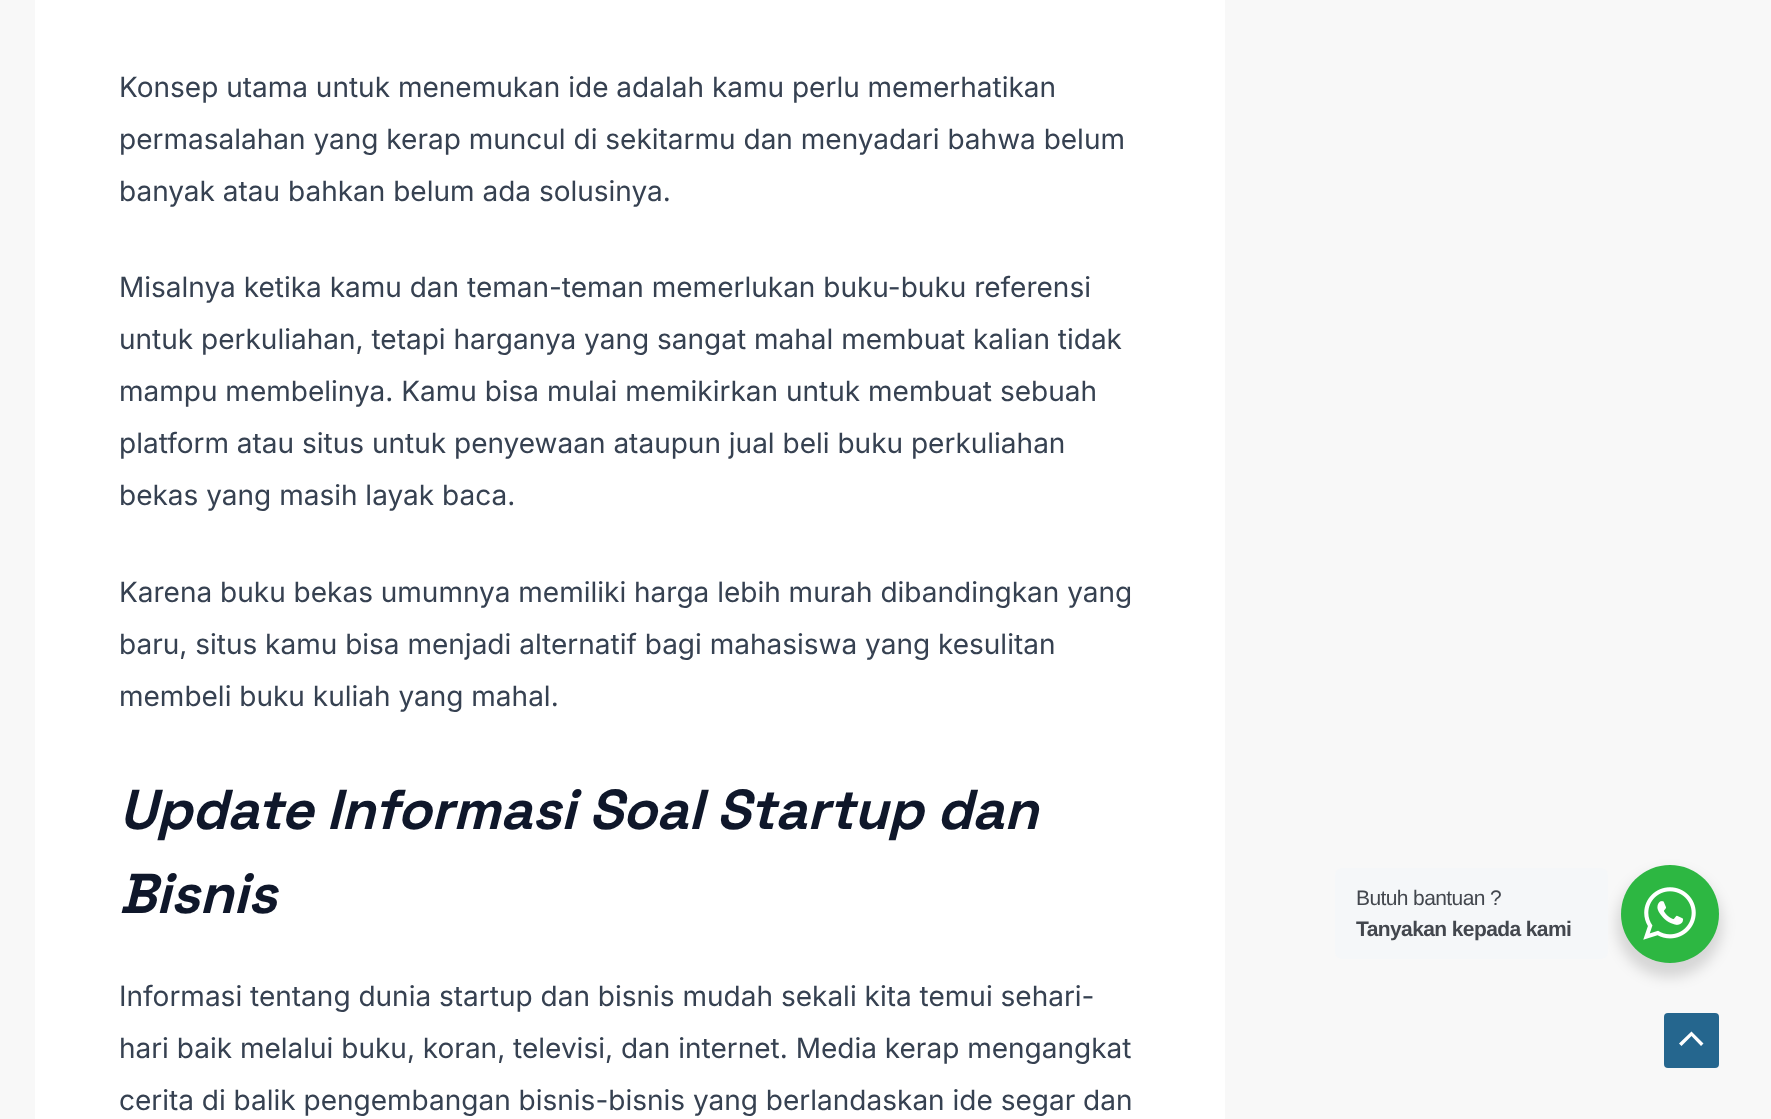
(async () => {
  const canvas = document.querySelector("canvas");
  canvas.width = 1771;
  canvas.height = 1119;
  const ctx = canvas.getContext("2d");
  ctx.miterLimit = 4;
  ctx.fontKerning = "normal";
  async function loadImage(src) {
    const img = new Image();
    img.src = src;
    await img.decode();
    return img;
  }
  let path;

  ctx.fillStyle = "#f8f8f8";
  ctx.fillRect(0, 0, 1771, 1119);
  ctx.fillStyle = "#ffffff";
  ctx.fillRect(35, 0, 1190, 1119);
  ctx.fillStyle = "rgba(0, 0, 0, 0.14)";
  ctx.filter = "blur(7px)";
  ctx.beginPath();
  ctx.roundRect(1617, 872, 105, 105, 52.5);
  ctx.fill();
  ctx.filter = "none";
  ctx.fillStyle = "#f5f7f9";
  ctx.beginPath();
  ctx.roundRect(1335, 868, 273, 91, 7);
  ctx.fill();
  ctx.fillStyle = "#2db742";
  ctx.beginPath();
  ctx.arc(1670, 914, 49, 0, Math.PI * 2);
  ctx.fill();
  ctx.drawImage(await loadImage("img/1.png"), 1643, 887, 53, 53);
  ctx.fillStyle = "#25668e";
  ctx.beginPath();
  ctx.roundRect(1664, 1013, 55, 55, 4);
  ctx.fill();
  ctx.fillStyle = "#ffffff";
  path = new Path2D("M1703.5 1043.5L1691.5 1031.5L1679 1043.5L1681.5 1046L1691.5 1036L1701 1046Z");
  ctx.fill(path);
  ctx.font = "28px Inter";
  ctx.fillStyle = "#364151";
  for (const [text, x, y] of [
    ["Konsep utama untuk menemukan ide adalah kamu perlu memerhatikan", 119, 97],
    ["permasalahan yang kerap muncul di sekitarmu dan menyadari bahwa belum", 119, 149],
    ["banyak atau bahkan belum ada solusinya.", 119, 201],
    ["Misalnya ketika kamu dan teman-teman memerlukan buku-buku referensi", 119, 297],
    ["untuk perkuliahan, tetapi harganya yang sangat mahal membuat kalian tidak", 119, 349],
    ["mampu membelinya. Kamu bisa mulai memikirkan untuk membuat sebuah", 119, 401],
    ["platform atau situs untuk penyewaan ataupun jual beli buku perkuliahan", 119, 453],
    ["bekas yang masih layak baca.", 119, 505],
    ["Karena buku bekas umumnya memiliki harga lebih murah dibandingkan yang", 119, 602],
    ["baru, situs kamu bisa menjadi alternatif bagi mahasiswa yang kesulitan", 119, 654],
    ["membeli buku kuliah yang mahal.", 119, 706],
  ]) {
    ctx.fillText(text, x, y);
  }
  ctx.letterSpacing = "-0.45px";
  ctx.font = "italic bold 56px Space Grotesk";
  ctx.fillStyle = "#0f172a";
  ctx.fillText("Update Informasi Soal Startup dan", 119, 829);
  ctx.fillText("Bisnis", 119, 913);
  ctx.letterSpacing = "0px";
  ctx.font = "28px Inter";
  ctx.fillStyle = "#364151";
  for (const [text, x, y] of [
    ["Informasi tentang dunia startup dan bisnis mudah sekali kita temui sehari-", 119, 1006],
    ["hari baik melalui buku, koran, televisi, dan internet. Media kerap mengangkat", 119, 1058],
    ["cerita di balik pengembangan bisnis-bisnis yang berlandaskan ide segar dan", 119, 1110],
  ]) {
    ctx.fillText(text, x, y);
  }
  ctx.letterSpacing = "-0.6px";
  ctx.font = "21px Liberation Sans";
  ctx.fillStyle = "#43474e";
  ctx.fillText("Butuh bantuan ?", 1356, 905);
  ctx.font = "bold 21px Liberation Sans";
  ctx.fillText("Tanyakan kepada kami", 1356, 936);
})();
